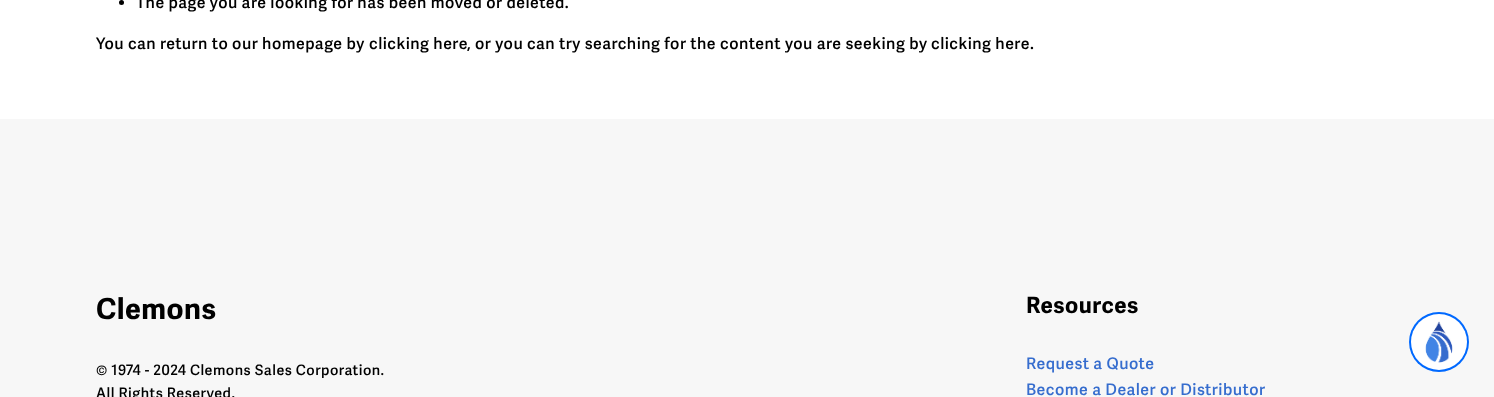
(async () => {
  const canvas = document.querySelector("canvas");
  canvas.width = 1494;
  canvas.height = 397;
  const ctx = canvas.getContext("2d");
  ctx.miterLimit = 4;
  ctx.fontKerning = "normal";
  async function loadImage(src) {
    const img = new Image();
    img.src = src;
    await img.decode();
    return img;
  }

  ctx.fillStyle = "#ffffff";
  ctx.fillRect(0, 0, 1494, 397);
  ctx.fillStyle = "#000000";
  ctx.beginPath();
  ctx.arc(121.5, 2.5, 2.5, 0, Math.PI * 2);
  ctx.fill();
  ctx.fillStyle = "#f7f7f7";
  ctx.fillRect(0, 119, 1494, 278);
  ctx.fillStyle = "#0069ff";
  ctx.beginPath();
  ctx.arc(1439, 342, 30, 0, Math.PI * 2);
  ctx.fill();
  ctx.drawImage(await loadImage("img/1.png"), 1411, 314, 56, 56);
  ctx.letterSpacing = "0.48px";
  ctx.font = "600 16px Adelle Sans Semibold";
  ctx.fillStyle = "#000000";
  for (const [text, x, y] of [
    ["The page you are looking for has been moved or deleted.", 136, 8],
    ["You can return to our homepage by", 96, 49],
    ["clicking here", 369, 49],
    [", or you can try searching for the content you are seeking by", 467, 49],
    ["clicking here", 931, 49],
    [".", 1030, 49],
  ]) {
    ctx.fillText(text, x, y);
  }
  ctx.letterSpacing = "0.5px";
  ctx.font = "bold 29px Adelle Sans";
  ctx.fillText("Clemons", 96, 319);
  ctx.letterSpacing = "0.48px";
  ctx.font = "600 14.4px Adelle Sans Semibold";
  ctx.fillText("© 1974 - 2024 Clemons Sales Corporation.", 96, 375);
  ctx.fillText("All Rights Reserved.", 96, 398);
  ctx.letterSpacing = "0.5px";
  ctx.font = "bold 22.5px Adelle Sans";
  ctx.fillText("Resources", 1026, 313);
  ctx.letterSpacing = "0.48px";
  ctx.font = "600 16px Adelle Sans Semibold";
  ctx.fillStyle = "#366dce";
  ctx.fillText("Request a Quote", 1026, 369);
  ctx.fillText("Become a Dealer or Distributor", 1026, 395);
})();
